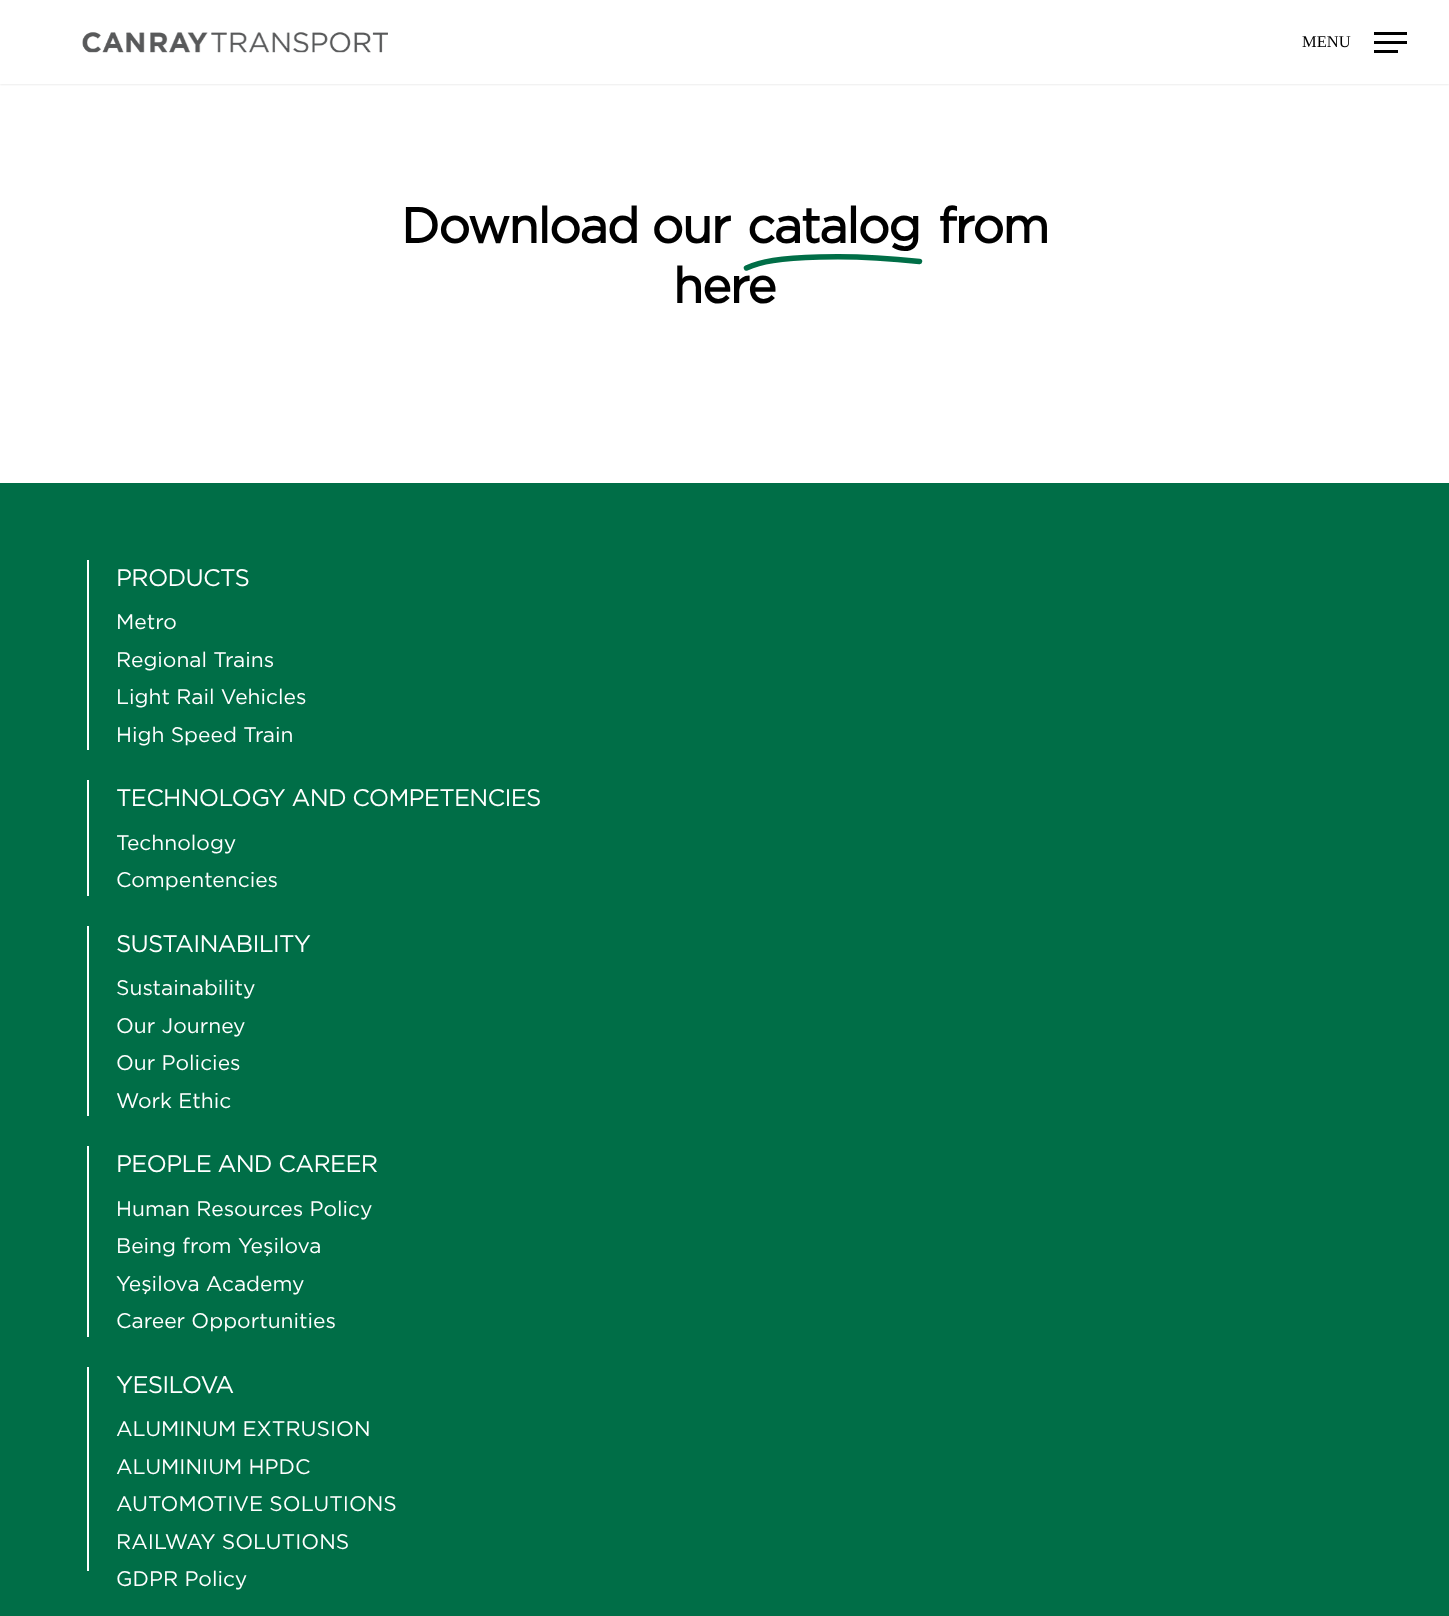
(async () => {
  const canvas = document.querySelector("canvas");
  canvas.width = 1449;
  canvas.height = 1616;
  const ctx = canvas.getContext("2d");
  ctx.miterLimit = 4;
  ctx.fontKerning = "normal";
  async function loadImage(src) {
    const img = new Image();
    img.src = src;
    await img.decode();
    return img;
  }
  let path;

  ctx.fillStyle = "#ffffff";
  ctx.fillRect(0, 0, 1449, 1616);
  ctx.save();
  ctx.beginPath();
  ctx.rect(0, 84, 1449, 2);
  ctx.clip();
  ctx.fillStyle = "rgba(0, 0, 0, 0.14)";
  ctx.filter = "blur(1.5px)";
  ctx.beginPath();
  ctx.rect(0, 0, 1449, 84);
  ctx.fill();
  ctx.filter = "none";
  ctx.restore();
  ctx.drawImage(await loadImage("img/1.png"), 82, 32, 306, 21);
  for (const [x, y, w, h, color] of [
    [1374, 32, 33, 3, "#000000"],
    [1374, 50, 24, 3, "#000000"],
    [1374, 41, 33, 3, "#000000"],
  ]) {
    ctx.fillStyle = color;
    ctx.fillRect(x, y, w, h);
  }
  path = new Path2D("M746.5 268C760.5 261.5 779 258 819.5 257C833.5 256.5 868.5 256 919.5 261.5");
  ctx.strokeStyle = "#006e47";
  ctx.lineWidth = 5.5;
  ctx.lineCap = "round";
  ctx.stroke(path);
  for (const [x, y, w, h, color] of [
    [0, 483, 1449, 1133, "#006e47"],
    [87, 560, 2, 190, "#ffffff"],
    [87, 780, 2, 116, "#ffffff"],
    [87, 926, 2, 190, "#ffffff"],
    [87, 1146, 2, 191, "#ffffff"],
    [87, 1367, 2, 204, "#ffffff"],
  ]) {
    ctx.fillStyle = color;
    ctx.fillRect(x, y, w, h);
  }
  ctx.font = "16.5px Liberation Serif";
  ctx.fillStyle = "#000000";
  ctx.fillText("MENU", 1302, 47);
  ctx.letterSpacing = "-1.5px";
  ctx.font = "bold 49.5px Gotham";
  for (const [text, x, y] of [
    ["Download our", 401, 243],
    ["catalog", 747, 243],
    ["from", 938, 243],
    ["here", 673, 303],
  ]) {
    ctx.fillText(text, x, y);
  }
  ctx.letterSpacing = "-0.75px";
  ctx.font = "24px Gotham";
  ctx.fillStyle = "#ffffff";
  ctx.fillText("PRODUCTS", 116, 586);
  ctx.letterSpacing = "0px";
  ctx.font = "21px Gotham";
  for (const [text, x, y] of [
    ["Metro", 116, 629],
    ["Regional Trains", 116, 667],
    ["Light Rail Vehicles", 116, 704],
    ["High Speed Train", 116, 742],
  ]) {
    ctx.fillText(text, x, y);
  }
  ctx.letterSpacing = "-0.75px";
  ctx.font = "24px Gotham";
  ctx.fillText("TECHNOLOGY AND COMPETENCIES", 116, 806);
  ctx.letterSpacing = "0px";
  ctx.font = "21px Gotham";
  ctx.fillText("Technology", 116, 850);
  ctx.fillText("Compentencies", 116, 887);
  ctx.letterSpacing = "-0.75px";
  ctx.font = "24px Gotham";
  ctx.fillText("SUSTAINABILITY", 116, 952);
  ctx.letterSpacing = "0px";
  ctx.font = "21px Gotham";
  for (const [text, x, y] of [
    ["Sustainability", 116, 995],
    ["Our Journey", 116, 1033],
    ["Our Policies", 116, 1070],
    ["Work Ethic", 116, 1108],
  ]) {
    ctx.fillText(text, x, y);
  }
  ctx.letterSpacing = "-0.75px";
  ctx.font = "24px Gotham";
  ctx.fillText("PEOPLE AND CAREER", 116, 1172);
  ctx.letterSpacing = "0px";
  ctx.font = "21px Gotham";
  for (const [text, x, y] of [
    ["Human Resources Policy", 116, 1216],
    ["Being from Yeşilova", 116, 1253],
    ["Yeşilova Academy", 116, 1291],
    ["Career Opportunities", 116, 1328],
  ]) {
    ctx.fillText(text, x, y);
  }
  ctx.letterSpacing = "-0.75px";
  ctx.font = "24px Gotham";
  ctx.fillText("YESILOVA", 116, 1393);
  ctx.letterSpacing = "0px";
  ctx.font = "21px Gotham";
  for (const [text, x, y] of [
    ["ALUMINUM EXTRUSION", 116, 1436],
    ["ALUMINIUM HPDC", 116, 1474],
    ["AUTOMOTIVE SOLUTIONS", 116, 1511],
    ["RAILWAY SOLUTIONS", 116, 1549],
    ["GDPR Policy", 116, 1586],
  ]) {
    ctx.fillText(text, x, y);
  }
})();
